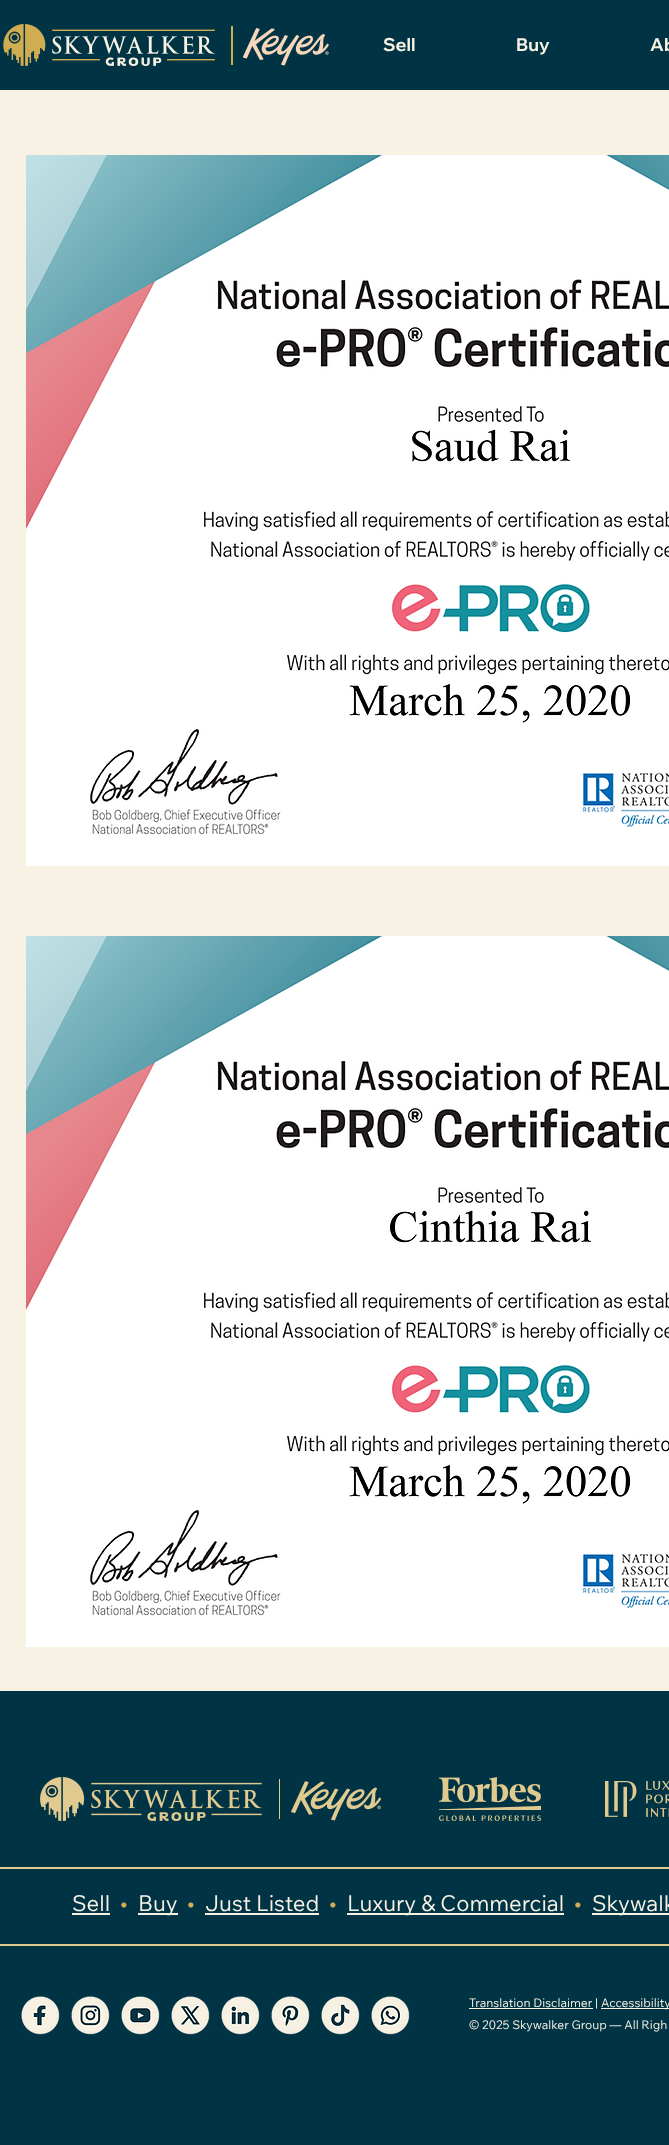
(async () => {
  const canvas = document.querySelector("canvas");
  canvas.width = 669;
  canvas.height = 2145;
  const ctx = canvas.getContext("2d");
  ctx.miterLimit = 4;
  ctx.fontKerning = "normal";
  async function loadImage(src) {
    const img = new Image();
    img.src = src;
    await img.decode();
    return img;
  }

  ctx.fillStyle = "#f8f2e4";
  ctx.fillRect(0, 0, 669, 2145);
  ctx.fillStyle = "#003444";
  ctx.fillRect(0, 0, 669, 90);
  ctx.drawImage(await loadImage("img/1.png"), 3, 24, 326, 42);
  ctx.drawImage(await loadImage("img/2.png"), 26, 155, 643, 711);
  ctx.drawImage(await loadImage("img/3.png"), 26, 936, 643, 711);
  ctx.fillRect(0, 1691, 669, 454);
  ctx.drawImage(await loadImage("img/4.png"), 40, 1777, 341, 44);
  ctx.drawImage(await loadImage("img/5.png"), 439, 1777, 102, 44);
  ctx.drawImage(await loadImage("img/6.png"), 605, 1781, 64, 36);
  for (const [x, y, w, h, color] of [
    [0, 1867, 669, 2, "#e1ca8f"],
    [72, 1913, 38, 2, "#f8f2e4"],
    [138, 1913, 40, 2, "#f8f2e4"],
    [205, 1913, 114, 2, "#f8f2e4"],
    [347, 1913, 217, 2, "#f8f2e4"],
    [592, 1913, 77, 2, "#f8f2e4"],
    [0, 1944, 669, 2, "#e1ca8f"],
  ]) {
    ctx.fillStyle = color;
    ctx.fillRect(x, y, w, h);
  }
  ctx.drawImage(await loadImage("img/7.png"), 21, 1996, 39, 39);
  ctx.drawImage(await loadImage("img/8.png"), 71, 1996, 39, 39);
  ctx.drawImage(await loadImage("img/9.png"), 121, 1996, 39, 39);
  ctx.drawImage(await loadImage("img/10.png"), 171, 1996, 39, 39);
  ctx.drawImage(await loadImage("img/11.png"), 221, 1996, 39, 39);
  ctx.drawImage(await loadImage("img/12.png"), 271, 1996, 39, 39);
  ctx.drawImage(await loadImage("img/13.png"), 321, 1996, 39, 39);
  ctx.drawImage(await loadImage("img/14.png"), 371, 1996, 39, 39);
  ctx.fillStyle = "#f8f2e4";
  ctx.fillRect(469, 2008, 124, 1);
  ctx.fillRect(601, 2008, 68, 1);
  ctx.font = "bold 18px Wix Madefor Display";
  for (const [text, x, y] of [
    ["Sell", 383, 51],
    ["Buy", 516, 51],
    ["Ab", 650, 51],
  ]) {
    ctx.fillText(text, x, y);
  }
  ctx.font = "22px Wix Madefor Text";
  ctx.fillText("Sell", 72, 1911);
  ctx.fillStyle = "#d1ad53";
  ctx.fillText("•", 120, 1911);
  ctx.fillStyle = "#f8f2e4";
  ctx.fillText("Buy", 138, 1911);
  ctx.fillStyle = "#d1ad53";
  ctx.fillText("•", 187, 1911);
  ctx.fillStyle = "#f8f2e4";
  ctx.fillText("Just Listed", 205, 1911);
  ctx.fillStyle = "#d1ad53";
  ctx.fillText("•", 329, 1911);
  ctx.fillStyle = "#f8f2e4";
  ctx.fillText("Luxury & Commercial", 347, 1911);
  ctx.fillStyle = "#d1ad53";
  ctx.fillText("•", 574, 1911);
  ctx.fillStyle = "#f8f2e4";
  ctx.fillText("Skywalk", 592, 1911);
  ctx.font = "12px Wix Madefor Text";
  for (const [text, x, y] of [
    ["Translation Disclaimer |", 469, 2007],
    ["Accessibility", 601, 2007],
    ["© 2025 Skywalker Group — All Righ", 469, 2029],
  ]) {
    ctx.fillText(text, x, y);
  }
})();
